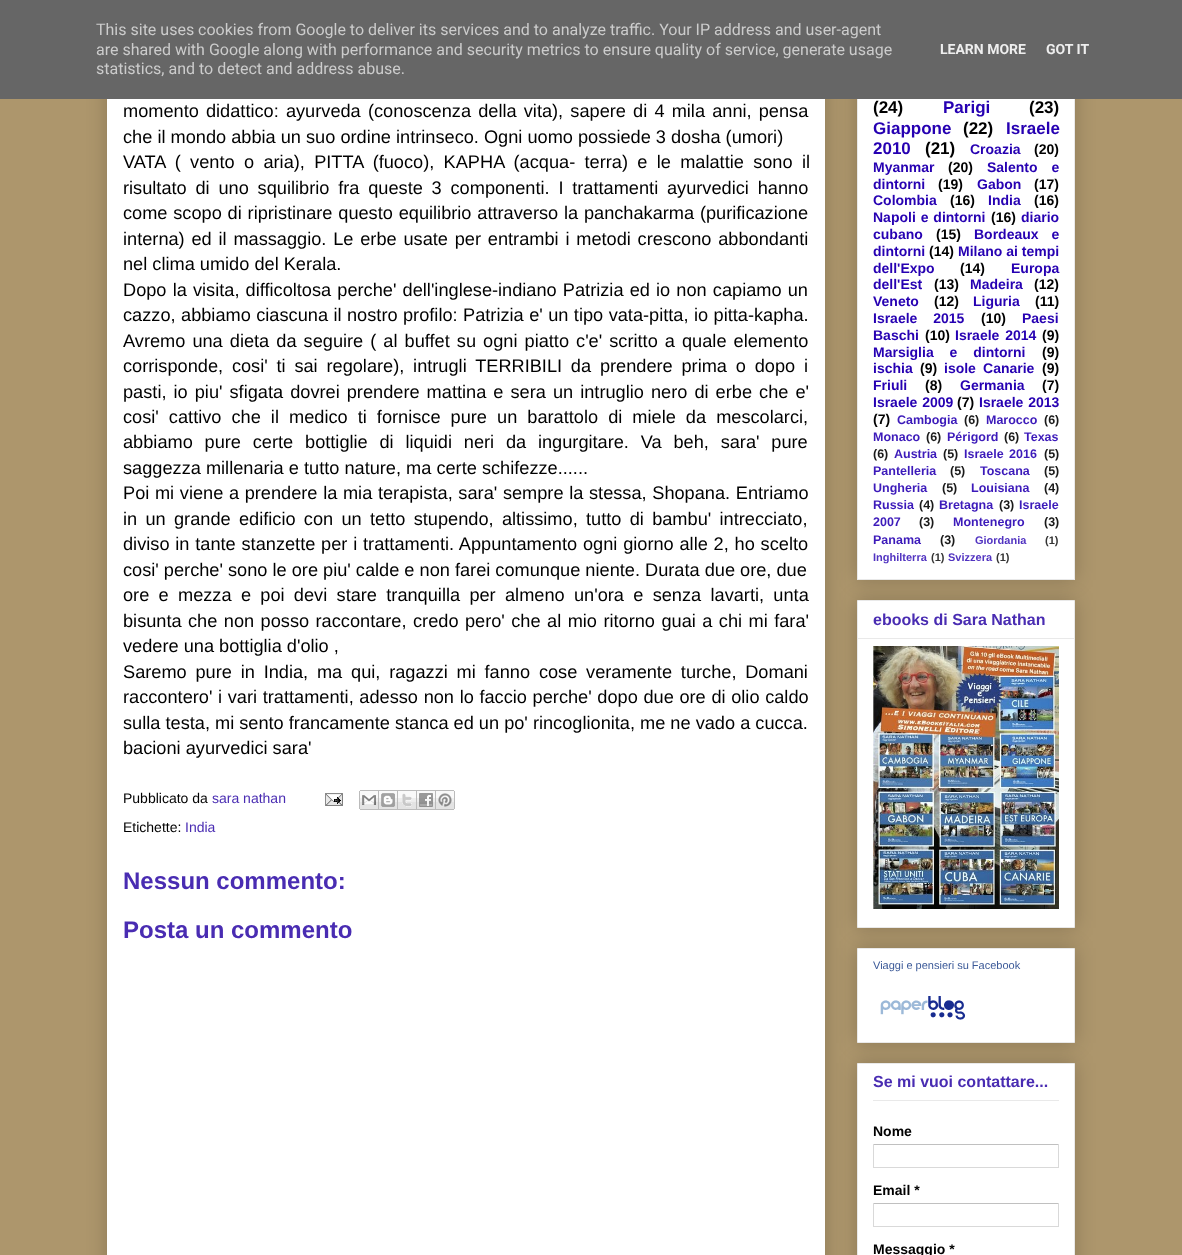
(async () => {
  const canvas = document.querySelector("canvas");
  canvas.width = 1182;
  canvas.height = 1255;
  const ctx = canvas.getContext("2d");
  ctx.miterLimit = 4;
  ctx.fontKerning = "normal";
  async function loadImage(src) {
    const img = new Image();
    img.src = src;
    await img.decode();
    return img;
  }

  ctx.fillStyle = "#ad966c";
  ctx.fillRect(0, 0, 1182, 1255);
  ctx.fillStyle = "rgba(0, 0, 0, 0.2)";
  ctx.filter = "blur(10px)";
  ctx.beginPath();
  ctx.rect(107, -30, 718, 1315);
  ctx.fill();
  ctx.filter = "none";
  ctx.filter = "blur(10px)";
  ctx.beginPath();
  ctx.rect(857, -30, 218, 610);
  ctx.fill();
  ctx.filter = "none";
  ctx.fillStyle = "#ffffff";
  ctx.fillRect(858, 99, 216, 480);
  ctx.strokeStyle = "#e9e9e9";
  ctx.strokeRect(857.5, -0.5, 217, 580);
  ctx.fillStyle = "#666666";
  ctx.fillRect(0, 0, 1182, 99);
  ctx.fillStyle = "#ffffff";
  ctx.fillRect(107, 99, 718, 1156);
  ctx.drawImage(await loadImage("img/1.png"), 325, 793, 18, 13);
  ctx.drawImage(await loadImage("img/2.png"), 359, 790, 20, 20);
  ctx.drawImage(await loadImage("img/3.png"), 379, 790, 19, 20);
  ctx.drawImage(await loadImage("img/4.png"), 398, 790, 19, 20);
  ctx.drawImage(await loadImage("img/5.png"), 417, 790, 19, 20);
  ctx.drawImage(await loadImage("img/6.png"), 436, 790, 19, 20);
  ctx.fillStyle = "rgba(0, 0, 0, 0.2)";
  ctx.filter = "blur(10px)";
  ctx.beginPath();
  ctx.rect(857, 600, 218, 328);
  ctx.fill();
  ctx.filter = "none";
  ctx.fillStyle = "#ffffff";
  ctx.beginPath();
  ctx.rect(857.5, 600.5, 217, 327);
  ctx.fill();
  ctx.stroke();
  ctx.fillStyle = "#e9e9e9";
  ctx.fillRect(858, 638, 216, 1);
  ctx.drawImage(await loadImage("img/7.png"), 873, 646, 186, 263);
  ctx.fillStyle = "rgba(0, 0, 0, 0.2)";
  ctx.filter = "blur(10px)";
  ctx.beginPath();
  ctx.rect(857, 948, 218, 95);
  ctx.fill();
  ctx.filter = "none";
  ctx.fillStyle = "#ffffff";
  ctx.beginPath();
  ctx.rect(857.5, 948.5, 217, 94);
  ctx.fill();
  ctx.stroke();
  ctx.drawImage(await loadImage("img/8.png"), 880, 996, 86, 24);
  ctx.fillStyle = "rgba(0, 0, 0, 0.2)";
  ctx.filter = "blur(10px)";
  ctx.beginPath();
  ctx.rect(857, 1063, 218, 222);
  ctx.fill();
  ctx.filter = "none";
  ctx.fillStyle = "#ffffff";
  ctx.beginPath();
  ctx.rect(857.5, 1063.5, 217, 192);
  ctx.fill();
  ctx.stroke();
  for (const [x, y, w, h, color] of [
    [873, 1100, 186, 1, "#e9e9e9"],
    [873, 1144, 186, 1, "#c0c0c0"],
    [1058, 1144, 1, 24, "#d9d9d9"],
    [873, 1167, 186, 1, "#d9d9d9"],
    [873, 1144, 1, 24, "#d9d9d9"],
    [873, 1203, 186, 1, "#c0c0c0"],
    [1058, 1203, 1, 24, "#d9d9d9"],
    [873, 1226, 186, 1, "#d9d9d9"],
    [873, 1203, 1, 24, "#d9d9d9"],
  ]) {
    ctx.fillStyle = color;
    ctx.fillRect(x, y, w, h);
  }
  ctx.font = "16px Roboto";
  ctx.fillStyle = "#cccccc";
  for (const [text, x, y] of [
    ["This site uses cookies from Google to deliver its services and to analyze traffic. Your IP address and user-agent", 96, 35],
    ["are shared with Google along with performance and security metrics to ensure quality of service, generate usage", 96, 55],
    ["statistics, and to detect and address abuse.", 96, 74],
  ]) {
    ctx.fillText(text, x, y);
  }
  ctx.font = "bold 14px Roboto";
  ctx.fillStyle = "#eeeeee";
  ctx.fillText("LEARN MORE", 940, 54);
  ctx.fillText("GOT IT", 1046, 54);
  ctx.wordSpacing = "2.1px";
  ctx.font = "18.2px Liberation Sans";
  ctx.fillStyle = "#000000";
  ctx.fillText("momento didattico: ayurveda (conoscenza della vita), sapere di 4 mila anni, pensa", 123, 117);
  ctx.wordSpacing = "0px";
  ctx.fillText("che il mondo abbia un suo ordine intrinseco. Ogni uomo possiede 3 dosha (umori)", 123, 143);
  ctx.wordSpacing = "4.25px";
  ctx.fillText("VATA ( vento", 123, 168);
  ctx.fillText("o aria), PITTA (fuoco), KAPHA (acqua- terra) e le malattie sono il", 244, 168);
  ctx.wordSpacing = "3.75px";
  ctx.fillText("risultato di uno squilibrio fra queste 3 componenti. I trattamenti ayurvedici hanno", 123, 194);
  ctx.wordSpacing = "0.75px";
  ctx.fillText("come scopo di ripristinare questo equilibrio attraverso la panchakarma (purificazione", 123, 219);
  ctx.wordSpacing = "1.75px";
  ctx.fillText("interna) ed il massaggio. Le erbe usate per entrambi i metodi crescono abbondanti", 123, 245);
  ctx.wordSpacing = "0px";
  ctx.fillText("nel clima umido del Kerala.", 123, 270);
  ctx.wordSpacing = "1.1px";
  ctx.fillText("Dopo la visita, difficoltosa perche' dell'inglese-indiano Patrizia ed io non capiamo un", 123, 296);
  ctx.wordSpacing = "0.4px";
  ctx.fillText("cazzo, abbiamo ciascuna il nostro profilo: Patrizia e' un tipo vata-pitta, io pitta-kapha.", 123, 321);
  ctx.wordSpacing = "2px";
  ctx.fillText("Avremo una dieta da seguire ( al buffet su ogni piatto c'e' scritto a quale elemento", 123, 347);
  ctx.wordSpacing = "3.75px";
  ctx.fillText("corrisponde, cosi' ti sai regolare), intrugli TERRIBILI da prendere prima o dopo i", 123, 372);
  ctx.wordSpacing = "2px";
  ctx.fillText("pasti, io piu' sfigata dovrei prendere mattina e sera un intruglio nero di erbe che e'", 123, 398);
  ctx.wordSpacing = "5px";
  ctx.fillText("cosi' cattivo che il medico ti fornisce pure un barattolo di miele da mescolarci,", 123, 423);
  ctx.wordSpacing = "6.75px";
  ctx.fillText("abbiamo pure certe bottiglie di liquidi neri da ingurgitare. Va beh, sara' pure", 123, 448);
  ctx.wordSpacing = "0px";
  ctx.fillText("saggezza millenaria e tutto nature, ma certe schifezze......", 123, 474);
  ctx.wordSpacing = "0.6px";
  ctx.fillText("Poi mi viene a prendere la mia terapista, sara' sempre la stessa, Shopana. Entriamo", 123, 499);
  ctx.wordSpacing = "3.25px";
  ctx.fillText("in un grande edificio con un tetto stupendo, altissimo, tutto di bambu' intrecciato,", 123, 525);
  ctx.wordSpacing = "0.75px";
  ctx.fillText("diviso in tante stanzette per i trattamenti. Appuntamento ogni giorno alle 2, ho scelto", 123, 550);
  ctx.wordSpacing = "0px";
  ctx.fillText("cosi' perche' sono le ore piu' calde e non farei comunque niente. Durata due ore, due", 123, 576);
  ctx.wordSpacing = "4.25px";
  ctx.fillText("ore e mezza e poi devi stare tranquilla per almeno un'ora e senza lavarti, unta", 123, 601);
  ctx.wordSpacing = "0px";
  ctx.fillText("bisunta", 123, 627);
  ctx.wordSpacing = "1.4px";
  ctx.fillText("che non posso raccontare, credo pero' che al mio ritorno guai a chi mi fara'", 188, 627);
  ctx.wordSpacing = "0px";
  ctx.fillText("vedere una bottiglia d'olio ,", 123, 652);
  ctx.wordSpacing = "3.75px";
  ctx.fillText("Saremo pure in India, ma qui, ragazzi mi fanno cose veramente turche, Domani", 123, 678);
  ctx.wordSpacing = "0.6px";
  ctx.fillText("raccontero' i vari trattamenti, adesso non lo faccio perche' dopo due ore di olio caldo", 123, 703);
  ctx.wordSpacing = "0px";
  ctx.fillText("sulla testa, mi sento francamente stanca ed un po' rincoglionita, me ne vado a cucca.", 123, 729);
  ctx.fillText("bacioni ayurvedici sara'", 123, 754);
  ctx.font = "14px Liberation Sans";
  ctx.fillText("Pubblicato da", 123, 803);
  ctx.fillStyle = "#492cb2";
  ctx.fillText("sara nathan", 212, 803);
  ctx.fillStyle = "#000000";
  ctx.fillText("Etichette:", 123, 832);
  ctx.fillStyle = "#492cb2";
  ctx.fillText("India", 185, 832);
  ctx.font = "bold 24px Liberation Sans";
  ctx.fillText("Nessun commento:", 123, 889);
  ctx.fillText("Posta un commento", 123, 938);
  ctx.font = "bold 17px Liberation Sans";
  ctx.fillStyle = "#000000";
  ctx.fillText("(24)", 873, 113);
  ctx.fillStyle = "#2600b2";
  ctx.fillText("Parigi", 943, 113);
  ctx.fillStyle = "#000000";
  ctx.fillText("(23)", 1029, 113);
  ctx.fillStyle = "#2600b2";
  ctx.fillText("Giappone", 873, 134);
  ctx.fillStyle = "#000000";
  ctx.fillText("(22)", 963, 134);
  ctx.fillStyle = "#2600b2";
  ctx.fillText("Israele", 1006, 134);
  ctx.fillText("2010", 873, 154);
  ctx.fillStyle = "#000000";
  ctx.fillText("(21)", 925, 154);
  ctx.font = "bold 14px Liberation Sans";
  ctx.fillStyle = "#2600b2";
  ctx.fillText("Croazia", 970, 154);
  ctx.fillStyle = "#000000";
  ctx.fillText("(20)", 1034, 154);
  ctx.fillStyle = "#2600b2";
  ctx.fillText("Myanmar", 873, 172);
  ctx.fillStyle = "#000000";
  ctx.fillText("(20)", 948, 172);
  ctx.wordSpacing = "10px";
  ctx.fillStyle = "#2600b2";
  ctx.fillText("Salento e", 987, 172);
  ctx.wordSpacing = "0px";
  ctx.fillText("dintorni", 873, 189);
  ctx.fillStyle = "#000000";
  ctx.fillText("(19)", 938, 189);
  ctx.fillStyle = "#2600b2";
  ctx.fillText("Gabon", 977, 189);
  ctx.fillStyle = "#000000";
  ctx.fillText("(17)", 1034, 189);
  ctx.fillStyle = "#2600b2";
  ctx.fillText("Colombia", 873, 205);
  ctx.fillStyle = "#000000";
  ctx.fillText("(16)", 950, 205);
  ctx.fillStyle = "#2600b2";
  ctx.fillText("India", 988, 205);
  ctx.fillStyle = "#000000";
  ctx.fillText("(16)", 1034, 205);
  ctx.wordSpacing = "1px";
  ctx.fillStyle = "#2600b2";
  ctx.fillText("Napoli e dintorni", 873, 222);
  ctx.wordSpacing = "0px";
  ctx.fillStyle = "#000000";
  ctx.fillText("(16)", 991, 222);
  ctx.fillStyle = "#2600b2";
  ctx.fillText("diario", 1021, 222);
  ctx.fillText("cubano", 873, 239);
  ctx.fillStyle = "#000000";
  ctx.fillText("(15)", 936, 239);
  ctx.wordSpacing = "9px";
  ctx.fillStyle = "#2600b2";
  ctx.fillText("Bordeaux e", 974, 239);
  ctx.wordSpacing = "0px";
  ctx.fillText("dintorni", 873, 256);
  ctx.fillStyle = "#000000";
  ctx.fillText("(14)", 929, 256);
  ctx.fillStyle = "#2600b2";
  ctx.fillText("Milano ai tempi", 958, 256);
  ctx.fillText("dell'Expo", 873, 273);
  ctx.fillStyle = "#000000";
  ctx.fillText("(14)", 960, 273);
  ctx.fillStyle = "#2600b2";
  ctx.fillText("Europa", 1011, 273);
  ctx.fillText("dell'Est", 873, 289);
  ctx.fillStyle = "#000000";
  ctx.fillText("(13)", 934, 289);
  ctx.fillStyle = "#2600b2";
  ctx.fillText("Madeira", 970, 289);
  ctx.fillStyle = "#000000";
  ctx.fillText("(12)", 1034, 289);
  ctx.fillStyle = "#2600b2";
  ctx.fillText("Veneto", 873, 306);
  ctx.fillStyle = "#000000";
  ctx.fillText("(12)", 934, 306);
  ctx.fillStyle = "#2600b2";
  ctx.fillText("Liguria", 973, 306);
  ctx.fillStyle = "#000000";
  ctx.fillText("(11)", 1035, 306);
  ctx.wordSpacing = "12px";
  ctx.fillStyle = "#2600b2";
  ctx.fillText("Israele 2015", 873, 323);
  ctx.wordSpacing = "0px";
  ctx.fillStyle = "#000000";
  ctx.fillText("(10)", 981, 323);
  ctx.fillStyle = "#2600b2";
  ctx.fillText("Paesi", 1022, 323);
  ctx.fillText("Baschi", 873, 340);
  ctx.fillStyle = "#000000";
  ctx.fillText("(10)", 925, 340);
  ctx.wordSpacing = "2px";
  ctx.fillStyle = "#2600b2";
  ctx.fillText("Israele 2014", 955, 340);
  ctx.wordSpacing = "0px";
  ctx.fillStyle = "#000000";
  ctx.fillText("(9)", 1042, 340);
  ctx.wordSpacing = "12px";
  ctx.fillStyle = "#2600b2";
  ctx.fillText("Marsiglia e dintorni", 873, 357);
  ctx.wordSpacing = "0px";
  ctx.fillStyle = "#000000";
  ctx.fillText("(9)", 1042, 357);
  ctx.fillStyle = "#2600b2";
  ctx.fillText("ischia", 873, 373);
  ctx.fillStyle = "#000000";
  ctx.fillText("(9)", 920, 373);
  ctx.wordSpacing = "3.25px";
  ctx.fillStyle = "#2600b2";
  ctx.fillText("isole Canarie", 944, 373);
  ctx.wordSpacing = "0px";
  ctx.fillStyle = "#000000";
  ctx.fillText("(9)", 1042, 373);
  ctx.fillStyle = "#2600b2";
  ctx.fillText("Friuli", 873, 390);
  ctx.fillStyle = "#000000";
  ctx.fillText("(8)", 925, 390);
  ctx.fillStyle = "#2600b2";
  ctx.fillText("Germania", 960, 390);
  ctx.fillStyle = "#000000";
  ctx.fillText("(7)", 1042, 390);
  ctx.wordSpacing = "1px";
  ctx.fillStyle = "#2600b2";
  ctx.fillText("Israele 2009", 873, 407);
  ctx.wordSpacing = "0px";
  ctx.fillStyle = "#000000";
  ctx.fillText("(7)", 957, 407);
  ctx.wordSpacing = "1px";
  ctx.fillStyle = "#2600b2";
  ctx.fillText("Israele 2013", 979, 407);
  ctx.wordSpacing = "0px";
  ctx.fillStyle = "#000000";
  ctx.fillText("(7)", 873, 424);
  ctx.font = "bold 12.5px Liberation Sans";
  ctx.fillStyle = "#3c1aba";
  ctx.fillText("Cambogia", 897, 424);
  ctx.fillStyle = "#1a1a1a";
  ctx.fillText("(6)", 964, 424);
  ctx.fillStyle = "#3c1aba";
  ctx.fillText("Marocco", 986, 424);
  ctx.fillStyle = "#1a1a1a";
  ctx.fillText("(6)", 1044, 424);
  ctx.fillStyle = "#3c1aba";
  ctx.fillText("Monaco", 873, 441);
  ctx.fillStyle = "#1a1a1a";
  ctx.fillText("(6)", 926, 441);
  ctx.fillStyle = "#3c1aba";
  ctx.fillText("Périgord", 947, 441);
  ctx.fillStyle = "#1a1a1a";
  ctx.fillText("(6)", 1004, 441);
  ctx.fillStyle = "#3c1aba";
  ctx.fillText("Texas", 1024, 441);
  ctx.fillStyle = "#1a1a1a";
  ctx.fillText("(6)", 873, 458);
  ctx.fillStyle = "#3c1aba";
  ctx.fillText("Austria", 894, 458);
  ctx.fillStyle = "#1a1a1a";
  ctx.fillText("(5)", 943, 458);
  ctx.wordSpacing = "2px";
  ctx.fillStyle = "#3c1aba";
  ctx.fillText("Israele 2016", 964, 458);
  ctx.wordSpacing = "0px";
  ctx.fillStyle = "#1a1a1a";
  ctx.fillText("(5)", 1044, 458);
  ctx.fillStyle = "#3c1aba";
  ctx.fillText("Pantelleria", 873, 475);
  ctx.fillStyle = "#1a1a1a";
  ctx.fillText("(5)", 950, 475);
  ctx.fillStyle = "#3c1aba";
  ctx.fillText("Toscana", 980, 475);
  ctx.fillStyle = "#1a1a1a";
  ctx.fillText("(5)", 1044, 475);
  ctx.fillStyle = "#3c1aba";
  ctx.fillText("Ungheria", 873, 492);
  ctx.fillStyle = "#1a1a1a";
  ctx.fillText("(5)", 942, 492);
  ctx.fillStyle = "#3c1aba";
  ctx.fillText("Louisiana", 971, 492);
  ctx.fillStyle = "#1a1a1a";
  ctx.fillText("(4)", 1044, 492);
  ctx.fillStyle = "#3c1aba";
  ctx.fillText("Russia", 873, 509);
  ctx.fillStyle = "#1a1a1a";
  ctx.fillText("(4)", 919, 509);
  ctx.fillStyle = "#3c1aba";
  ctx.fillText("Bretagna", 939, 509);
  ctx.fillStyle = "#1a1a1a";
  ctx.fillText("(3)", 999, 509);
  ctx.fillStyle = "#3c1aba";
  ctx.fillText("Israele", 1019, 509);
  ctx.fillText("2007", 873, 526);
  ctx.fillStyle = "#1a1a1a";
  ctx.fillText("(3)", 919, 526);
  ctx.fillStyle = "#3c1aba";
  ctx.fillText("Montenegro", 953, 526);
  ctx.fillStyle = "#1a1a1a";
  ctx.fillText("(3)", 1044, 526);
  ctx.fillStyle = "#3c1aba";
  ctx.fillText("Panama", 873, 544);
  ctx.fillStyle = "#1a1a1a";
  ctx.fillText("(3)", 940, 544);
  ctx.font = "bold 11px Liberation Sans";
  ctx.fillStyle = "#5133c1";
  ctx.fillText("Giordania", 975, 544);
  ctx.fillStyle = "#333333";
  ctx.fillText("(1)", 1045, 544);
  ctx.fillStyle = "#5133c1";
  ctx.fillText("Inghilterra", 873, 561);
  ctx.fillStyle = "#333333";
  ctx.fillText("(1)", 931, 561);
  ctx.fillStyle = "#5133c1";
  ctx.fillText("Svizzera", 948, 561);
  ctx.fillStyle = "#333333";
  ctx.fillText("(1)", 996, 561);
  ctx.font = "bold 16px Liberation Sans";
  ctx.fillStyle = "#492cb2";
  ctx.fillText("ebooks di Sara Nathan", 873, 625);
  ctx.font = "11px Liberation Sans";
  ctx.fillStyle = "#3b5998";
  ctx.fillText("Viaggi e pensieri su Facebook", 873, 969);
  ctx.font = "bold 16px Liberation Sans";
  ctx.fillStyle = "#492cb2";
  ctx.fillText("Se mi vuoi contattare...", 873, 1087);
  ctx.font = "bold 14px Liberation Sans";
  ctx.fillStyle = "#000000";
  for (const [text, x, y] of [
    ["Nome", 873, 1136],
    ["Email *", 873, 1195],
    ["Messaggio *", 873, 1254],
  ]) {
    ctx.fillText(text, x, y);
  }
})();
